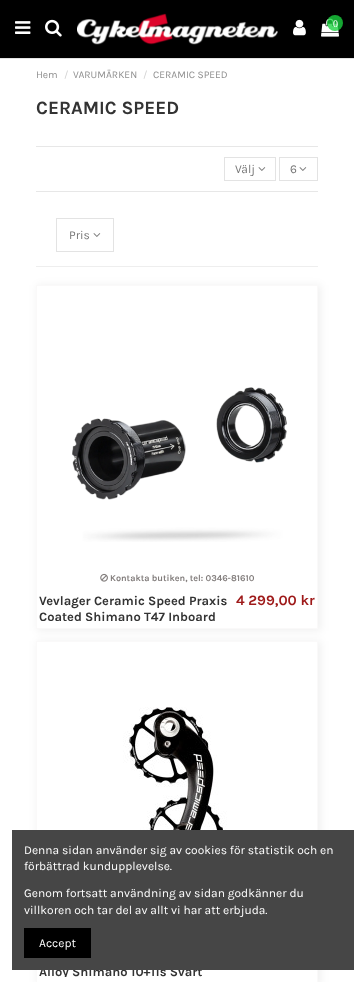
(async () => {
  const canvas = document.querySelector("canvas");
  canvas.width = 354;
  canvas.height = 982;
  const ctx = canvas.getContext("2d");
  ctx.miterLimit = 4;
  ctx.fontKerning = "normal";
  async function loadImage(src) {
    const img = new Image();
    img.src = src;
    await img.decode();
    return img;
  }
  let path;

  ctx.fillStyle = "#ffffff";
  ctx.fillRect(0, 0, 354, 982);
  ctx.fillStyle = "#000000";
  ctx.fillRect(0, 0, 354, 58);
  ctx.fillStyle = "#e3e3e3";
  ctx.fillRect(0, 58, 354, 1);
  ctx.drawImage(await loadImage("img/1.png"), 15, 21, 16, 13);
  ctx.drawImage(await loadImage("img/2.png"), 45, 19, 17, 18);
  ctx.drawImage(await loadImage("img/3.png"), 77, 13, 201, 32);
  ctx.drawImage(await loadImage("img/4.png"), 293, 19, 13, 17);
  ctx.drawImage(await loadImage("img/5.png"), 321, 18, 18, 19);
  ctx.fillStyle = "rgba(27, 211, 63, 0.79)";
  ctx.beginPath();
  ctx.arc(335, 23, 8, 0, Math.PI * 2);
  ctx.fill();
  ctx.fillStyle = "#e7e7e7";
  ctx.fillRect(36, 146, 282, 1);
  ctx.fillRect(36, 191, 282, 1);
  ctx.strokeStyle = "#e3e3e3";
  ctx.strokeRect(224.5, 157.5, 51, 23);
  ctx.drawImage(await loadImage("img/6.png"), 258, 167, 8, 4);
  ctx.strokeRect(279.5, 157.5, 38, 23);
  ctx.drawImage(await loadImage("img/6.png"), 299, 167, 8, 4);
  ctx.fillStyle = "#eeeeee";
  ctx.fillRect(36, 266, 282, 1);
  ctx.strokeRect(56.5, 218.5, 57, 33);
  ctx.drawImage(await loadImage("img/6.png"), 93, 233, 8, 4);
  ctx.save();
  path = new Path2D("M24 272H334V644H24ZM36 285H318V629H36Z");
  ctx.clip(path, "evenodd");
  ctx.fillStyle = "rgba(0, 0, 0, 0.06)";
  ctx.filter = "blur(4px)";
  ctx.beginPath();
  ctx.rect(37, 285, 284, 346);
  ctx.fill();
  ctx.filter = "none";
  ctx.restore();
  ctx.strokeStyle = "#faf9f9";
  ctx.strokeRect(36.5, 285.5, 281, 343);
  ctx.drawImage(await loadImage("img/7.png"), 72, 387, 215, 155);
  ctx.drawImage(await loadImage("img/8.png"), 100, 573, 8, 9);
  ctx.save();
  path = new Path2D("M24 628H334V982H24ZM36 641H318V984H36Z");
  ctx.clip(path, "evenodd");
  ctx.fillStyle = "rgba(0, 0, 0, 0.06)";
  ctx.filter = "blur(4px)";
  ctx.beginPath();
  ctx.rect(37, 641, 284, 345);
  ctx.fill();
  ctx.filter = "none";
  ctx.restore();
  ctx.strokeRect(36.5, 641.5, 281, 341);
  ctx.drawImage(await loadImage("img/9.png"), 123, 707, 104, 123);
  ctx.font = "10px Liberation Serif";
  ctx.fillStyle = "#ffffff";
  ctx.fillText("0", 333, 27);
  ctx.font = "10.25px Karla";
  ctx.fillStyle = "#8f8f8f";
  ctx.fillText("Hem", 36, 78);
  ctx.fillStyle = "#d2d2d2";
  ctx.fillText("/", 64, 78);
  ctx.fillStyle = "#8f8f8f";
  ctx.fillText("VARUMÄRKEN", 73, 78);
  ctx.fillStyle = "#d2d2d2";
  ctx.fillText("/", 143, 78);
  ctx.fillStyle = "#8f8f8f";
  ctx.fillText("CERAMIC SPEED", 153, 78);
  ctx.font = "bold 18.75px Karla";
  ctx.fillStyle = "#333333";
  ctx.fillText("CERAMIC SPEED", 36, 114);
  ctx.font = "12px Karla";
  ctx.fillStyle = "#777777";
  for (const [text, x, y] of [
    ["Välj", 235, 173],
    ["6", 290, 173],
    ["Pris", 69, 239],
  ]) {
    ctx.fillText(text, x, y);
  }
  ctx.font = "bold 9px Karla";
  ctx.fillStyle = "#827d7c";
  ctx.fillText("Kontakta butiken, tel: 0346-81610", 110, 581);
  ctx.font = "bold 12.9px Karla";
  ctx.fillStyle = "#333333";
  ctx.fillText("Vevlager Ceramic Speed Praxis", 39, 605);
  ctx.save();
  ctx.beginPath();
  ctx.rect(39, 593, 190, 28);
  ctx.clip();
  ctx.fillText("Coated Shimano T47 Inboard", 39, 621);
  ctx.restore();
  ctx.font = "bold 14.5px Karla";
  ctx.fillStyle = "#9e1919";
  ctx.fillText("4 299,00 kr", 236, 605);
  ctx.save();
  ctx.beginPath();
  ctx.rect(39, 949, 190, 28);
  ctx.clip();
  ctx.font = "bold 12.9px Karla";
  ctx.fillStyle = "#333333";
  ctx.fillText("Alloy Shimano 10+11s Svart", 39, 976);
  ctx.restore();
  ctx.fillStyle = "#464646";
  ctx.fillRect(12, 830, 342, 140);
  ctx.font = "12px Karla";
  ctx.fillStyle = "#ffffff";
  for (const [text, x, y] of [
    ["Denna sidan använder sig av cookies för statistik och en", 24, 854],
    ["förbättrad kundupplevelse.", 24, 870],
    ["Genom fortsatt användning av sidan godkänner du", 24, 897],
    ["villkoren och tar del av allt vi har att erbjuda.", 24, 914],
  ]) {
    ctx.fillText(text, x, y);
  }
  ctx.fillStyle = "#000000";
  ctx.fillRect(24, 928, 67, 30);
  ctx.fillStyle = "#ffffff";
  ctx.fillText("Accept", 39, 947);
})();
